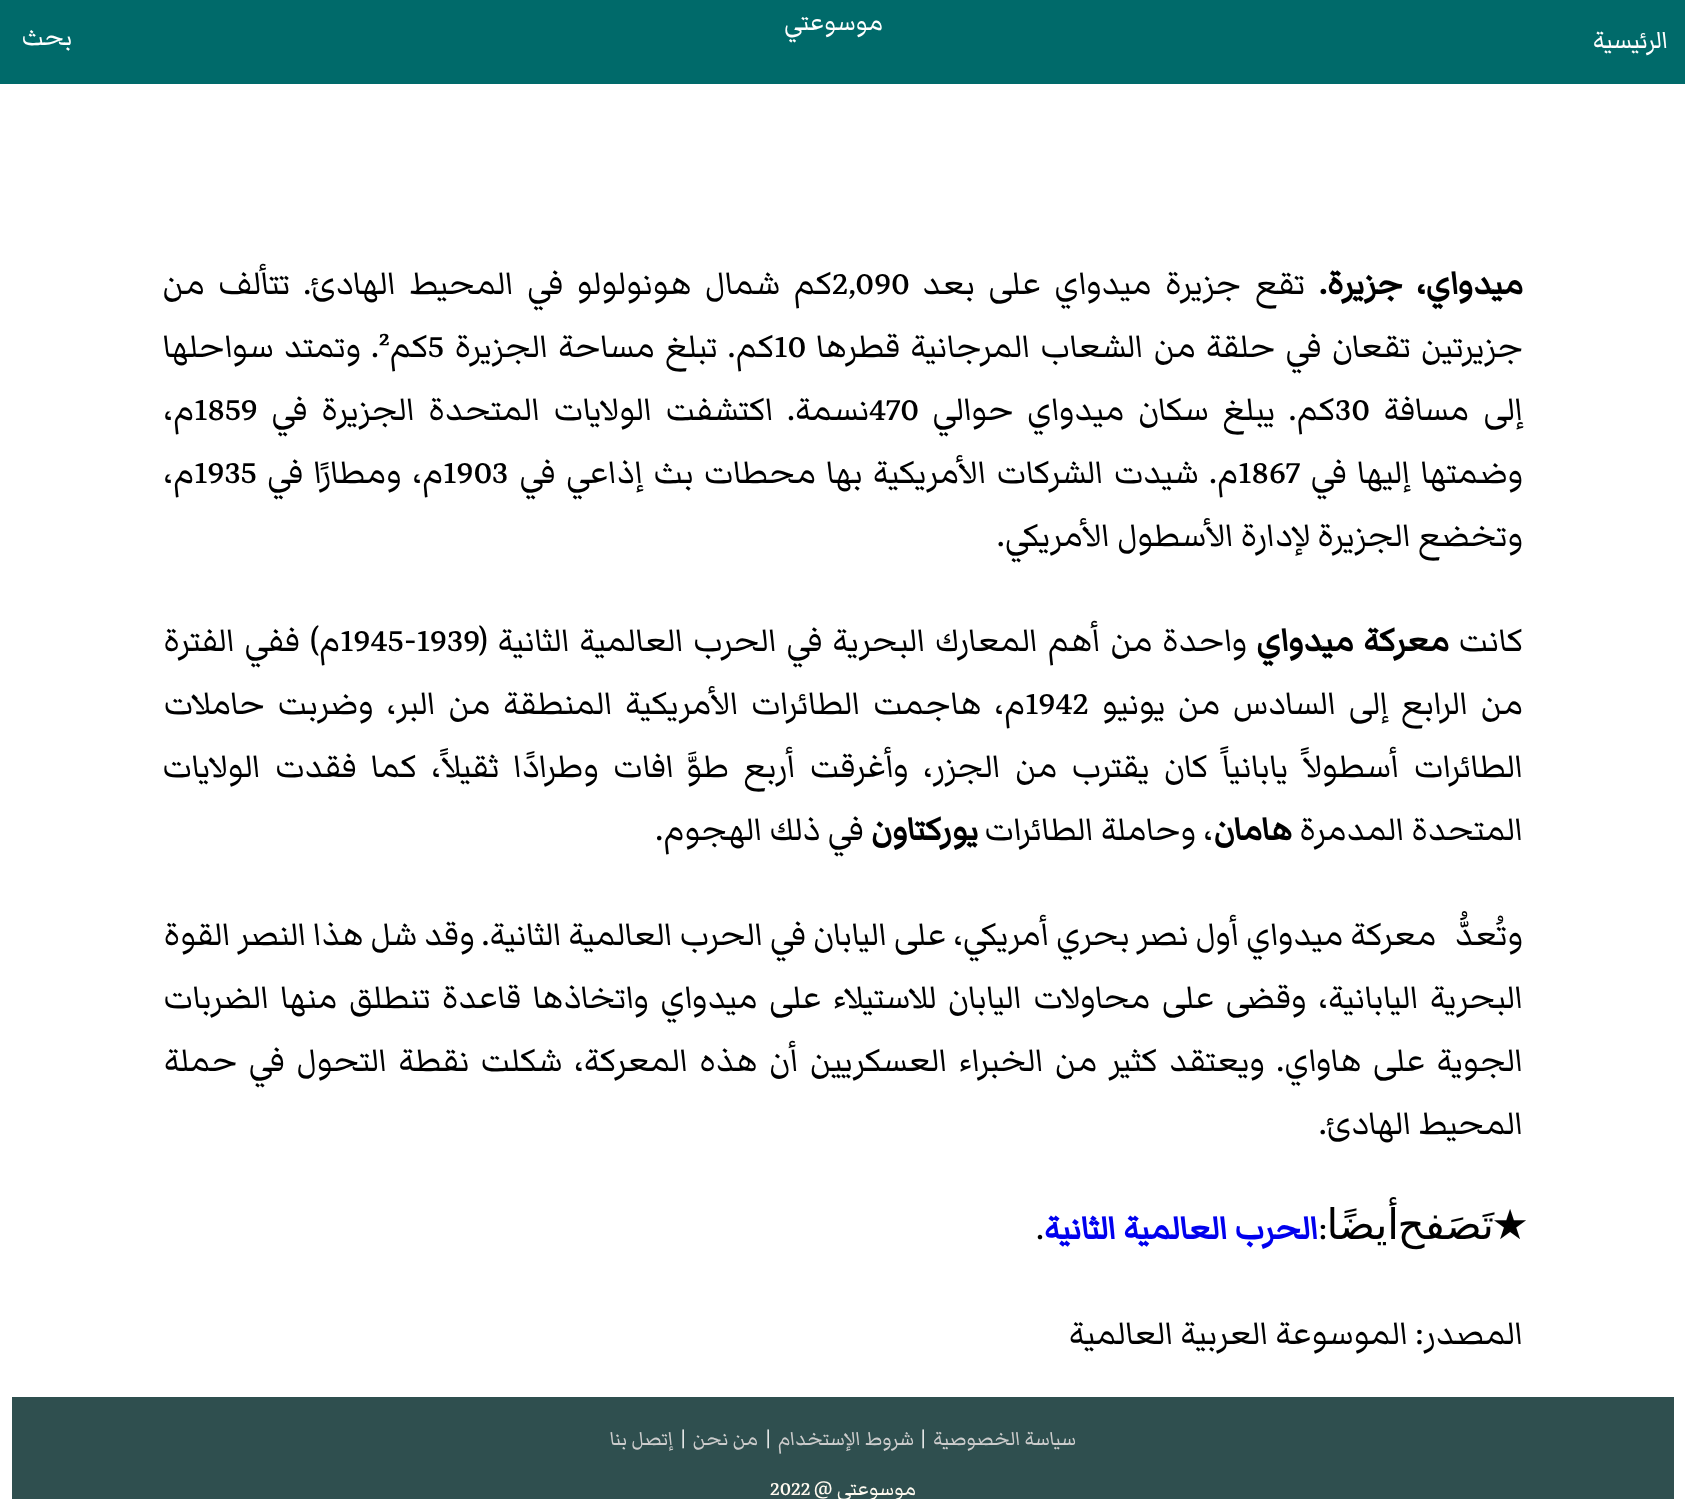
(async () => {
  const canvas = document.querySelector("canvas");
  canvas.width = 1685;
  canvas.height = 1499;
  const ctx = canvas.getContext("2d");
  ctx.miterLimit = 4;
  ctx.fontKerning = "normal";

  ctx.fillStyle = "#ffffff";
  ctx.fillRect(0, 0, 1685, 1499);
  ctx.fillStyle = "#006a6a";
  ctx.fillRect(0, 0, 1685, 84);
  ctx.fillStyle = "#2f4f4f";
  ctx.fillRect(12, 1397, 1662, 102);
  ctx.direction = "rtl";
  ctx.font = "31.5px Markazi Text";
  ctx.fillStyle = "#ffffff";
  for (const [text, x, y] of [
    ["الرئيسية", 1668, 48],
    ["موسوعتي", 883, 30],
    ["بحث", 72, 45],
  ]) {
    ctx.fillText(text, x, y);
  }
  ctx.wordSpacing = "6px";
  ctx.font = "bold 42px Markazi Text";
  ctx.fillStyle = "#000000";
  ctx.fillText("ميدواي، جزيرة.", 1523, 294);
  ctx.wordSpacing = "6.5px";
  ctx.font = "42px Markazi Text";
  ctx.fillText("تقع جزيرة ميدواي على بعد", 1305, 294);
  ctx.wordSpacing = "0px";
  ctx.direction = "ltr";
  ctx.fillText("2,090", 832, 294);
  ctx.wordSpacing = "6.25px";
  ctx.direction = "rtl";
  ctx.fillText("كم شمال هونولولو في المحيط الهادئ. تتألف من", 832, 294);
  ctx.wordSpacing = "3px";
  ctx.fillText("جزيرتين تقعان في حلقة من الشعاب المرجانية قطرها", 1523, 357);
  ctx.wordSpacing = "0px";
  ctx.direction = "ltr";
  ctx.fillText("10", 774, 357);
  ctx.wordSpacing = "3px";
  ctx.direction = "rtl";
  ctx.fillText("كم. تبلغ مساحة الجزيرة", 774, 357);
  ctx.wordSpacing = "0px";
  ctx.direction = "ltr";
  ctx.fillText("5", 428, 357);
  ctx.direction = "rtl";
  ctx.fillText("كم", 428, 357);
  ctx.direction = "ltr";
  ctx.fillText("²", 379, 357);
  ctx.wordSpacing = "3px";
  ctx.direction = "rtl";
  ctx.fillText(". وتمتد سواحلها", 379, 357);
  ctx.wordSpacing = "7px";
  ctx.fillText("إلى مسافة", 1523, 420);
  ctx.wordSpacing = "0px";
  ctx.direction = "ltr";
  ctx.fillText("30", 1335, 420);
  ctx.wordSpacing = "6.5px";
  ctx.direction = "rtl";
  ctx.fillText("كم. يبلغ سكان ميدواي حوالي", 1335, 420);
  ctx.wordSpacing = "0px";
  ctx.direction = "ltr";
  ctx.fillText("470", 869, 420);
  ctx.wordSpacing = "6.5px";
  ctx.direction = "rtl";
  ctx.fillText("نسمة. اكتشفت الولايات المتحدة الجزيرة في", 869, 420);
  ctx.wordSpacing = "0px";
  ctx.direction = "ltr";
  ctx.fillText("1859", 194, 420);
  ctx.direction = "rtl";
  ctx.fillText("م،", 194, 420);
  ctx.wordSpacing = "3.25px";
  ctx.fillText("وضمتها إليها في", 1523, 483);
  ctx.wordSpacing = "0px";
  ctx.direction = "ltr";
  ctx.fillText("1867", 1238, 483);
  ctx.wordSpacing = "3.25px";
  ctx.direction = "rtl";
  ctx.fillText("م. شيدت الشركات الأمريكية بها محطات بث إذاعي في", 1238, 483);
  ctx.wordSpacing = "0px";
  ctx.direction = "ltr";
  ctx.fillText("1903", 443, 483);
  ctx.wordSpacing = "3.25px";
  ctx.direction = "rtl";
  ctx.fillText("م، ومطارًا في", 443, 483);
  ctx.wordSpacing = "0px";
  ctx.direction = "ltr";
  ctx.fillText("1935", 194, 483);
  ctx.direction = "rtl";
  for (const [text, x, y] of [
    ["م،", 194, 483],
    ["وتخضع الجزيرة لإدارة الأسطول الأمريكي.", 1523, 546],
    ["كانت", 1523, 651],
  ]) {
    ctx.fillText(text, x, y);
  }
  ctx.wordSpacing = "2.5px";
  ctx.font = "bold 42px Markazi Text";
  ctx.fillText("معركة ميدواي", 1449, 651);
  ctx.font = "42px Markazi Text";
  ctx.fillText("واحدة من أهم المعارك البحرية في الحرب العالمية الثانية (", 1247, 651);
  ctx.wordSpacing = "0px";
  ctx.direction = "ltr";
  ctx.fillText("1945-1939", 340, 651);
  ctx.wordSpacing = "2.5px";
  ctx.direction = "rtl";
  ctx.fillText("م) ففي الفترة", 340, 651);
  ctx.wordSpacing = "5.5px";
  ctx.fillText("من الرابع إلى السادس من يونيو", 1523, 714);
  ctx.wordSpacing = "0px";
  ctx.direction = "ltr";
  ctx.fillText("1942", 1025, 714);
  ctx.wordSpacing = "5.5px";
  ctx.direction = "rtl";
  ctx.fillText("م، هاجمت الطائرات الأمريكية المنطقة من البر، وضربت حاملات", 1025, 714);
  ctx.wordSpacing = "7.25px";
  ctx.fillText("الطائرات أسطولاً يابانياً كان يقترب من الجزر، وأغرقت أربع طوَّافات وطرادًا ثقيلاً، كما فقدت الولايات", 1523, 777);
  ctx.wordSpacing = "0px";
  ctx.fillText("المتحدة المدمرة", 1523, 840);
  ctx.font = "bold 42px Markazi Text";
  ctx.fillText("هامان", 1292, 840);
  ctx.font = "42px Markazi Text";
  ctx.fillText("، وحاملة الطائرات", 1213, 840);
  ctx.font = "bold 42px Markazi Text";
  ctx.fillText("يوركتاون", 978, 840);
  ctx.font = "42px Markazi Text";
  ctx.fillText("في ذلك الهجوم.", 864, 840);
  ctx.wordSpacing = "-0.25px";
  ctx.fillText("وتُعدُّ معركة ميدواي أول نصر بحري أمريكي، على اليابان في الحرب العالمية الثانية. وقد شل هذا النصر القوة", 1523, 945);
  ctx.wordSpacing = "4.4px";
  ctx.fillText("البحرية اليابانية، وقضى على محاولات اليابان للاستيلاء على ميدواي واتخاذها قاعدة تنطلق منها الضربات", 1523, 1008);
  ctx.wordSpacing = "4.25px";
  ctx.fillText("الجوية على هاواي. ويعتقد كثير من الخبراء العسكريين أن هذه المعركة، شكلت نقطة التحول في حملة", 1523, 1071);
  ctx.wordSpacing = "0px";
  ctx.fillText("المحيط الهادئ.", 1523, 1134);
  ctx.font = "42px DejaVu Sans";
  for (const [text, x, y] of [
    ["تَصَفح", 1494, 1239],
    ["★", 1529, 1239],
    ["أيضًا", 1399, 1239],
  ]) {
    ctx.fillText(text, x, y);
  }
  ctx.font = "42px Markazi Text";
  ctx.fillText(":", 1327, 1239);
  ctx.font = "bold 42px Markazi Text";
  ctx.fillStyle = "#0000ee";
  ctx.fillText("الحرب العالمية الثانية", 1318, 1239);
  ctx.direction = "ltr";
  ctx.font = "42px Markazi Text";
  ctx.fillStyle = "#000000";
  ctx.fillText(".", 1036, 1239);
  ctx.direction = "rtl";
  ctx.fillText("المصدر: الموسوعة العربية العالمية", 1523, 1344);
  ctx.font = "25.25px Markazi Text";
  ctx.fillStyle = "#cccccc";
  ctx.fillText("سياسة الخصوصية", 1076, 1445);
  ctx.direction = "ltr";
  ctx.fillStyle = "#f5f5f5";
  ctx.fillText("|", 920, 1445);
  ctx.direction = "rtl";
  ctx.fillStyle = "#cccccc";
  ctx.fillText("شروط الإستخدام", 914, 1445);
  ctx.direction = "ltr";
  ctx.fillStyle = "#f5f5f5";
  ctx.fillText("|", 765, 1445);
  ctx.direction = "rtl";
  ctx.fillStyle = "#cccccc";
  ctx.fillText("من نحن", 758, 1445);
  ctx.direction = "ltr";
  ctx.fillStyle = "#f5f5f5";
  ctx.fillText("|", 680, 1445);
  ctx.direction = "rtl";
  ctx.fillStyle = "#cccccc";
  ctx.fillText("إتصل بنا", 673, 1445);
  ctx.fillStyle = "#fffaf0";
  ctx.fillText("موسوعتي @", 916, 1495);
  ctx.direction = "ltr";
  ctx.fillText("2022", 770, 1495);
})();
